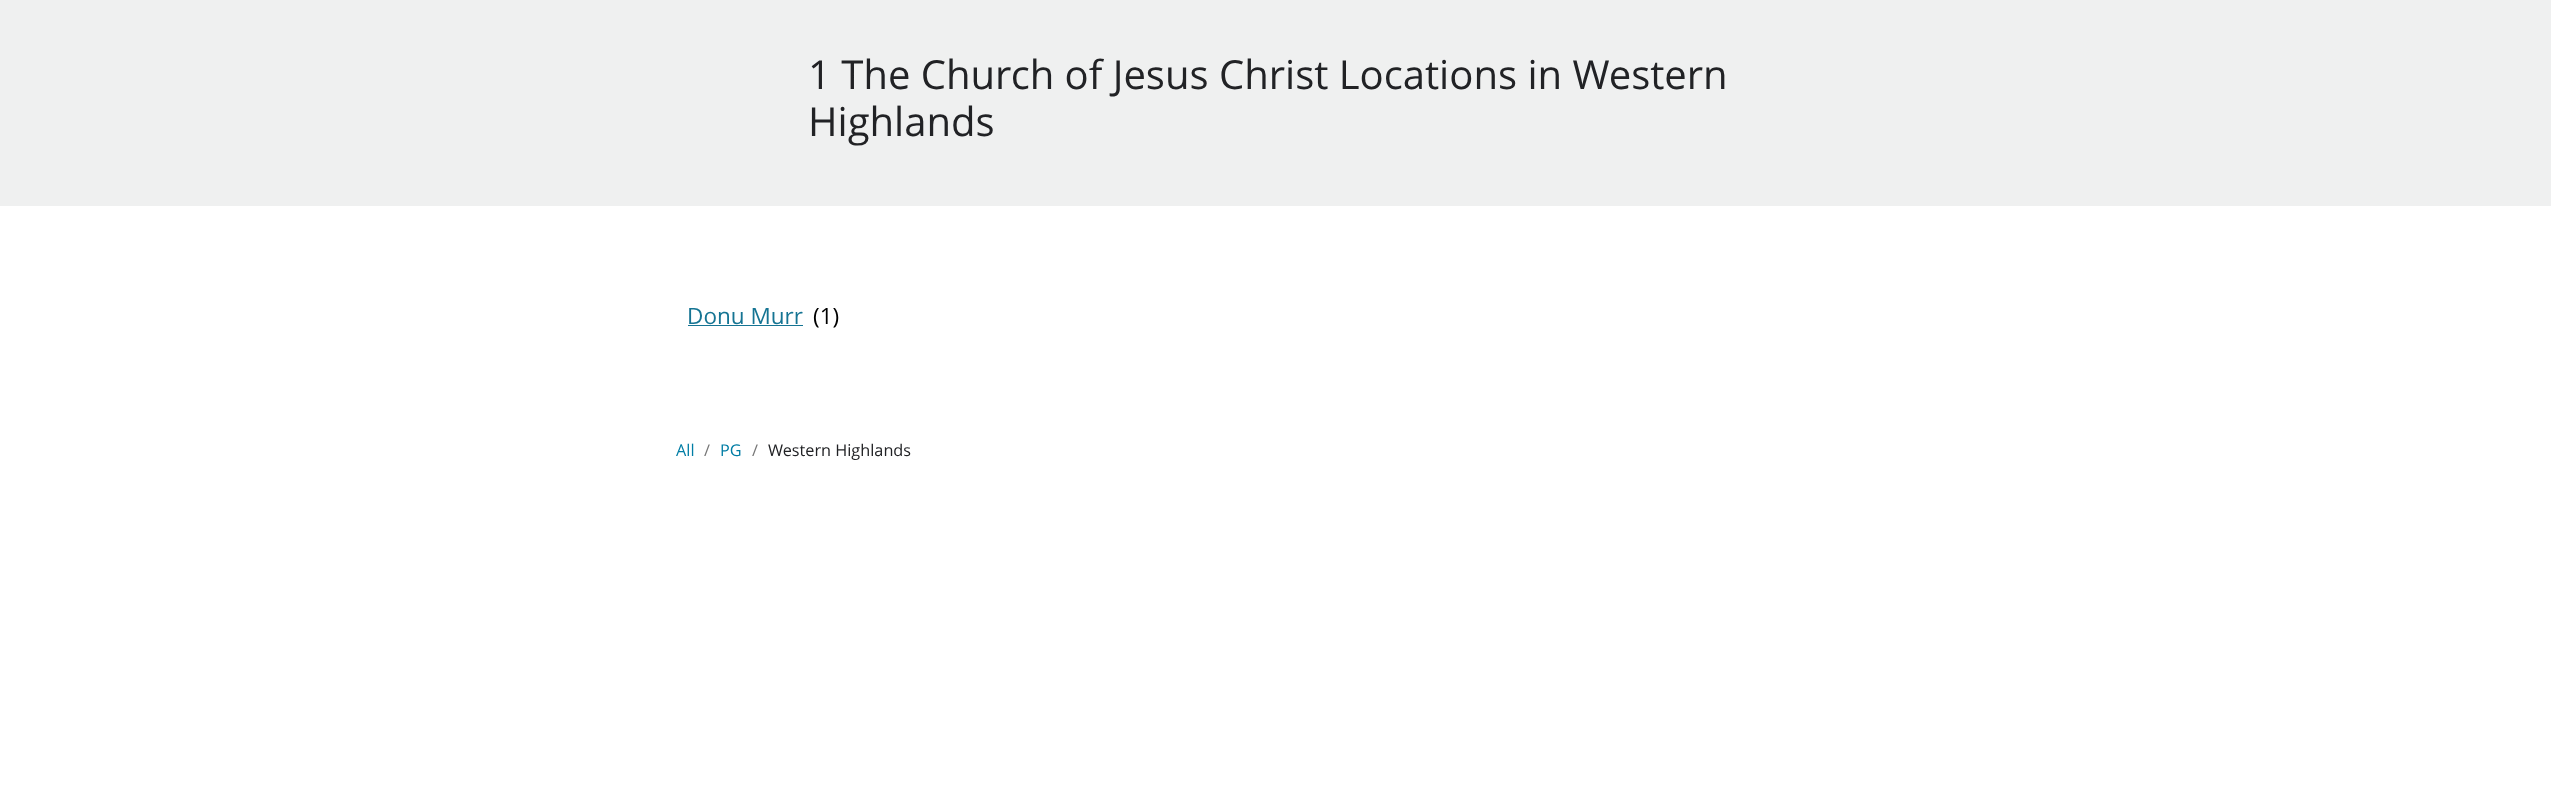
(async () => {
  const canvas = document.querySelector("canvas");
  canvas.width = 2551;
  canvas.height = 808;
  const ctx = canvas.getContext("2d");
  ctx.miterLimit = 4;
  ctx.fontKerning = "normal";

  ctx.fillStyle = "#ffffff";
  ctx.fillRect(0, 0, 2551, 808);
  ctx.fillStyle = "#eff0f0";
  ctx.fillRect(0, 0, 2551, 206);
  ctx.fillStyle = "#157493";
  ctx.fillRect(688, 325, 115, 1);
  ctx.font = "40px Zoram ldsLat";
  ctx.fillStyle = "#212225";
  ctx.fillText("1 The Church of Jesus Christ Locations in Western", 808, 89);
  ctx.fillText("Highlands", 808, 136);
  ctx.font = "22.5px Zoram ldsLat";
  ctx.fillStyle = "#157493";
  ctx.fillText("Donu Murr", 687, 324);
  ctx.fillStyle = "#000000";
  ctx.fillText("(1)", 813, 324);
  ctx.font = "16.25px Zoram ldsLat";
  ctx.fillStyle = "#007da5";
  ctx.fillText("All", 676, 456);
  ctx.fillStyle = "#767676";
  ctx.fillText("/", 704, 456);
  ctx.fillStyle = "#007da5";
  ctx.fillText("PG", 720, 456);
  ctx.fillStyle = "#767676";
  ctx.fillText("/", 752, 456);
  ctx.fillStyle = "#212225";
  ctx.fillText("Western Highlands", 768, 456);
})();
